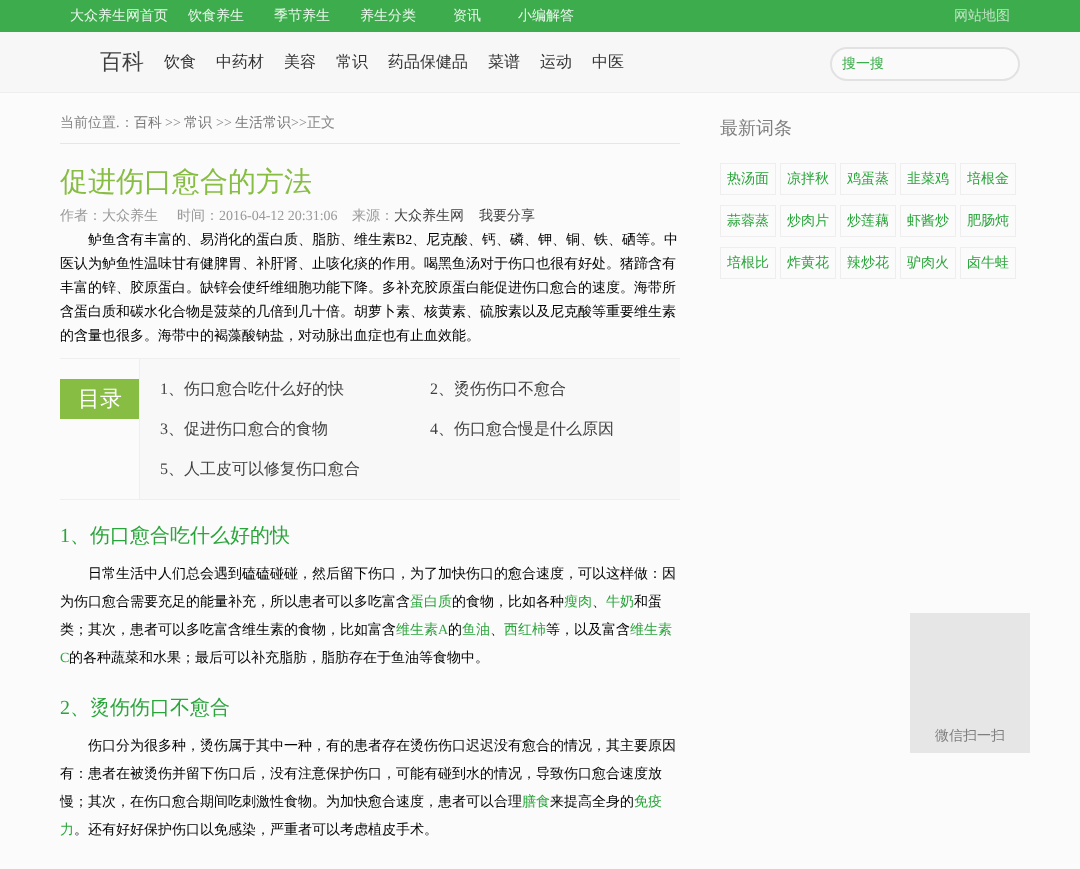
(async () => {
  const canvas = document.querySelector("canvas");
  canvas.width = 1080;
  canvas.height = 869;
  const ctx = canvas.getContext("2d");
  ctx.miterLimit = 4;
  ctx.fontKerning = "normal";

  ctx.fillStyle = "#fbfbfb";
  ctx.fillRect(0, 0, 1080, 869);
  for (const [x, y, w, h, color] of [
    [0, 0, 1080, 32, "#3cac4c"],
    [0, 32, 1080, 60, "#f7f7f7"],
    [0, 92, 1080, 1, "#eeeeee"],
  ]) {
    ctx.fillStyle = color;
    ctx.fillRect(x, y, w, h);
  }
  ctx.fillStyle = "#fafafa";
  ctx.beginPath();
  ctx.roundRect(831, 48, 188, 32, 16);
  ctx.fill();
  ctx.strokeStyle = "#e2e2e2";
  ctx.lineWidth = 2;
  ctx.stroke();
  for (const [x, y, w, h, color] of [
    [60, 143, 620, 1, "#e6e6e6"],
    [60, 358, 620, 1, "#efefef"],
    [60, 499, 620, 1, "#efefef"],
    [60, 379, 79, 40, "#88bd43"],
    [140, 359, 540, 140, "#f8f8f8"],
    [139, 359, 1, 140, "#efefef"],
  ]) {
    ctx.fillStyle = color;
    ctx.fillRect(x, y, w, h);
  }
  ctx.strokeStyle = "#eeeeee";
  ctx.lineWidth = 1;
  ctx.strokeRect(720.5, 163.5, 55, 31);
  ctx.strokeRect(780.5, 163.5, 55, 31);
  ctx.strokeRect(840.5, 163.5, 55, 31);
  ctx.strokeRect(900.5, 163.5, 55, 31);
  ctx.strokeRect(960.5, 163.5, 55, 31);
  ctx.strokeRect(720.5, 205.5, 55, 31);
  ctx.strokeRect(780.5, 205.5, 55, 31);
  ctx.strokeRect(840.5, 205.5, 55, 31);
  ctx.strokeRect(900.5, 205.5, 55, 31);
  ctx.strokeRect(960.5, 205.5, 55, 31);
  ctx.strokeRect(720.5, 247.5, 55, 31);
  ctx.strokeRect(780.5, 247.5, 55, 31);
  ctx.strokeRect(840.5, 247.5, 55, 31);
  ctx.strokeRect(900.5, 247.5, 55, 31);
  ctx.strokeRect(960.5, 247.5, 55, 31);
  ctx.fillStyle = "#e6e6e6";
  ctx.fillRect(910, 613, 120, 140);
  ctx.font = "500 14px WenQuanYi Zen Hei";
  ctx.fillStyle = "#ecf7ed";
  for (const [text, x, y] of [
    ["大众养生网首页", 70, 20],
    ["饮食养生", 188, 20],
    ["季节养生", 274, 20],
    ["养生分类", 360, 20],
    ["资讯", 453, 20],
    ["小编解答", 518, 20],
  ]) {
    ctx.fillText(text, x, y);
  }
  ctx.fillStyle = "#bde3c2";
  ctx.fillText("网站地图", 954, 20);
  ctx.font = "500 22px WenQuanYi Zen Hei";
  ctx.fillStyle = "#3f3f3f";
  ctx.fillText("百科", 100, 69);
  ctx.font = "500 16px WenQuanYi Zen Hei";
  ctx.fillStyle = "#333333";
  for (const [text, x, y] of [
    ["饮食", 164, 67],
    ["中药材", 216, 67],
    ["美容", 284, 67],
    ["常识", 336, 67],
    ["药品保健品", 388, 67],
    ["菜谱", 488, 67],
    ["运动", 540, 67],
    ["中医", 592, 67],
  ]) {
    ctx.fillText(text, x, y);
  }
  ctx.font = "500 14px WenQuanYi Zen Hei";
  ctx.fillStyle = "#3cac4c";
  ctx.fillText("搜一搜", 842, 68);
  ctx.fillStyle = "#868686";
  ctx.fillText("当前位置", 60, 127);
  ctx.fillText("：", 120, 127);
  ctx.fillStyle = "#777777";
  ctx.fillText("百科", 134, 127);
  ctx.font = "14px Liberation Serif";
  ctx.fillStyle = "#868686";
  ctx.fillText(">>", 165, 127);
  ctx.font = "500 14px WenQuanYi Zen Hei";
  ctx.fillStyle = "#777777";
  ctx.fillText("常识", 184, 127);
  ctx.font = "14px Liberation Serif";
  ctx.fillStyle = "#868686";
  ctx.fillText(">>", 216, 127);
  ctx.font = "500 14px WenQuanYi Zen Hei";
  ctx.fillStyle = "#777777";
  ctx.fillText("生活常识", 235, 127);
  ctx.font = "14px Liberation Serif";
  ctx.fillStyle = "#868686";
  ctx.fillText(">>", 291, 127);
  ctx.font = "500 14px WenQuanYi Zen Hei";
  ctx.fillText("正文", 307, 127);
  ctx.font = "14px Liberation Serif";
  ctx.fillText(".", 116, 127);
  ctx.font = "500 28px WenQuanYi Zen Hei";
  ctx.fillStyle = "#88bd43";
  ctx.fillText("促进伤口愈合的方法", 60, 191);
  ctx.font = "500 14px WenQuanYi Zen Hei";
  ctx.fillStyle = "#999999";
  ctx.fillText("作者：大众养生", 60, 220);
  ctx.fillText("时间：", 177, 220);
  ctx.font = "14px Liberation Serif";
  ctx.fillText("2016-04-12 20:31:06", 219, 220);
  ctx.font = "500 14px WenQuanYi Zen Hei";
  ctx.fillText("来源：", 352, 220);
  ctx.fillStyle = "#3f3f3f";
  ctx.fillText("大众养生网", 394, 220);
  ctx.fillText("我要分享", 479, 220);
  ctx.fillStyle = "#000000";
  ctx.fillText("鲈鱼含有丰富的、易消化的蛋白质、脂肪、维生素", 88, 244);
  ctx.font = "14px Liberation Serif";
  ctx.fillText("B2", 396, 244);
  ctx.font = "500 14px WenQuanYi Zen Hei";
  for (const [text, x, y] of [
    ["、尼克酸、钙、磷、钾、铜、铁、硒等。中", 412, 244],
    ["医认为鲈鱼性温味甘有健脾胃、补肝肾、止咳化痰的作用。喝黑鱼汤对于伤口也很有好处。猪蹄含有", 60, 268],
    ["丰富的锌、胶原蛋白。缺锌会使纤维细胞功能下降。多补充胶原蛋白能促进伤口愈合的速度。海带所", 60, 292],
    ["含蛋白质和碳水化合物是菠菜的几倍到几十倍。胡萝卜素、核黄素、硫胺素以及尼克酸等重要维生素", 60, 316],
    ["的含量也很多。海带中的褐藻酸钠盐，对动脉出血症也有止血效能。", 60, 340],
  ]) {
    ctx.fillText(text, x, y);
  }
  ctx.font = "500 22px WenQuanYi Zen Hei";
  ctx.fillStyle = "#ffffff";
  ctx.fillText("目录", 78, 406);
  ctx.font = "16px Liberation Serif";
  ctx.fillStyle = "#3f3f3f";
  ctx.fillText("1", 160, 394);
  ctx.font = "500 16px WenQuanYi Zen Hei";
  ctx.fillText("、伤口愈合吃什么好的快", 168, 394);
  ctx.font = "16px Liberation Serif";
  ctx.fillText("2", 430, 394);
  ctx.font = "500 16px WenQuanYi Zen Hei";
  ctx.fillText("、烫伤伤口不愈合", 438, 394);
  ctx.font = "16px Liberation Serif";
  ctx.fillText("3", 160, 434);
  ctx.font = "500 16px WenQuanYi Zen Hei";
  ctx.fillText("、促进伤口愈合的食物", 168, 434);
  ctx.font = "16px Liberation Serif";
  ctx.fillText("4", 430, 434);
  ctx.font = "500 16px WenQuanYi Zen Hei";
  ctx.fillText("、伤口愈合慢是什么原因", 438, 434);
  ctx.font = "16px Liberation Serif";
  ctx.fillText("5", 160, 474);
  ctx.font = "500 16px WenQuanYi Zen Hei";
  ctx.fillText("、人工皮可以修复伤口愈合", 168, 474);
  ctx.font = "20px Liberation Serif";
  ctx.fillStyle = "#2aa53b";
  ctx.fillText("1", 60, 542);
  ctx.font = "500 20px WenQuanYi Zen Hei";
  ctx.fillText("、伤口愈合吃什么好的快", 70, 542);
  ctx.font = "500 14px WenQuanYi Zen Hei";
  ctx.fillStyle = "#000000";
  ctx.fillText("日常生活中人们总会遇到磕磕碰碰，然后留下伤口，为了加快伤口的愈合速度，可以这样做：因", 88, 578);
  ctx.fillText("为伤口愈合需要充足的能量补充，所以患者可以多吃富含", 60, 606);
  ctx.fillStyle = "#2aa53b";
  ctx.fillText("蛋白质", 410, 606);
  ctx.fillStyle = "#000000";
  ctx.fillText("的食物，比如各种", 452, 606);
  ctx.fillStyle = "#2aa53b";
  ctx.fillText("瘦肉", 564, 606);
  ctx.fillStyle = "#000000";
  ctx.fillText("、", 592, 606);
  ctx.fillStyle = "#2aa53b";
  ctx.fillText("牛奶", 606, 606);
  ctx.fillStyle = "#000000";
  ctx.fillText("和蛋", 634, 606);
  ctx.fillText("类；其次，患者可以多吃富含维生素的食物，比如富含", 60, 634);
  ctx.fillStyle = "#2aa53b";
  ctx.fillText("维生素", 396, 634);
  ctx.font = "14px Liberation Serif";
  ctx.fillText("A", 438, 634);
  ctx.font = "500 14px WenQuanYi Zen Hei";
  ctx.fillStyle = "#000000";
  ctx.fillText("的", 448, 634);
  ctx.fillStyle = "#2aa53b";
  ctx.fillText("鱼油", 462, 634);
  ctx.fillStyle = "#000000";
  ctx.fillText("、", 490, 634);
  ctx.fillStyle = "#2aa53b";
  ctx.fillText("西红柿", 504, 634);
  ctx.fillStyle = "#000000";
  ctx.fillText("等，以及富含", 546, 634);
  ctx.fillStyle = "#2aa53b";
  ctx.fillText("维生素", 630, 634);
  ctx.font = "14px Liberation Serif";
  ctx.fillText("C", 60, 662);
  ctx.font = "500 14px WenQuanYi Zen Hei";
  ctx.fillStyle = "#000000";
  ctx.fillText("的各种蔬菜和水果；最后可以补充脂肪，脂肪存在于鱼油等食物中。", 69, 662);
  ctx.font = "20px Liberation Serif";
  ctx.fillStyle = "#2aa53b";
  ctx.fillText("2", 60, 714);
  ctx.font = "500 20px WenQuanYi Zen Hei";
  ctx.fillText("、烫伤伤口不愈合", 70, 714);
  ctx.font = "500 14px WenQuanYi Zen Hei";
  ctx.fillStyle = "#000000";
  for (const [text, x, y] of [
    ["伤口分为很多种，烫伤属于其中一种，有的患者存在烫伤伤口迟迟没有愈合的情况，其主要原因", 88, 750],
    ["有：患者在被烫伤并留下伤口后，没有注意保护伤口，可能有碰到水的情况，导致伤口愈合速度放", 60, 778],
    ["慢；其次，在伤口愈合期间吃刺激性食物。为加快愈合速度，患者可以合理", 60, 806],
  ]) {
    ctx.fillText(text, x, y);
  }
  ctx.fillStyle = "#2aa53b";
  ctx.fillText("膳食", 522, 806);
  ctx.fillStyle = "#000000";
  ctx.fillText("来提高全身的", 550, 806);
  ctx.fillStyle = "#2aa53b";
  ctx.fillText("免疫", 634, 806);
  ctx.fillText("力", 60, 834);
  ctx.fillStyle = "#000000";
  ctx.fillText("。还有好好保护伤口以免感染，严重者可以考虑植皮手术。", 74, 834);
  ctx.font = "500 18px WenQuanYi Zen Hei";
  ctx.fillStyle = "#7f7f7f";
  ctx.fillText("最新词条", 720, 134);
  ctx.font = "500 14px WenQuanYi Zen Hei";
  ctx.fillStyle = "#2aa53b";
  for (const [text, x, y] of [
    ["热汤面", 727, 183],
    ["凉拌秋", 787, 183],
    ["鸡蛋蒸", 847, 183],
    ["韭菜鸡", 907, 183],
    ["培根金", 967, 183],
    ["蒜蓉蒸", 727, 225],
    ["炒肉片", 787, 225],
    ["炒莲藕", 847, 225],
    ["虾酱炒", 907, 225],
    ["肥肠炖", 967, 225],
    ["培根比", 727, 267],
    ["炸黄花", 787, 267],
    ["辣炒花", 847, 267],
    ["驴肉火", 907, 267],
    ["卤牛蛙", 967, 267],
  ]) {
    ctx.fillText(text, x, y);
  }
  ctx.fillStyle = "#7f7f7f";
  ctx.fillText("微信扫一扫", 935, 740);
})();
